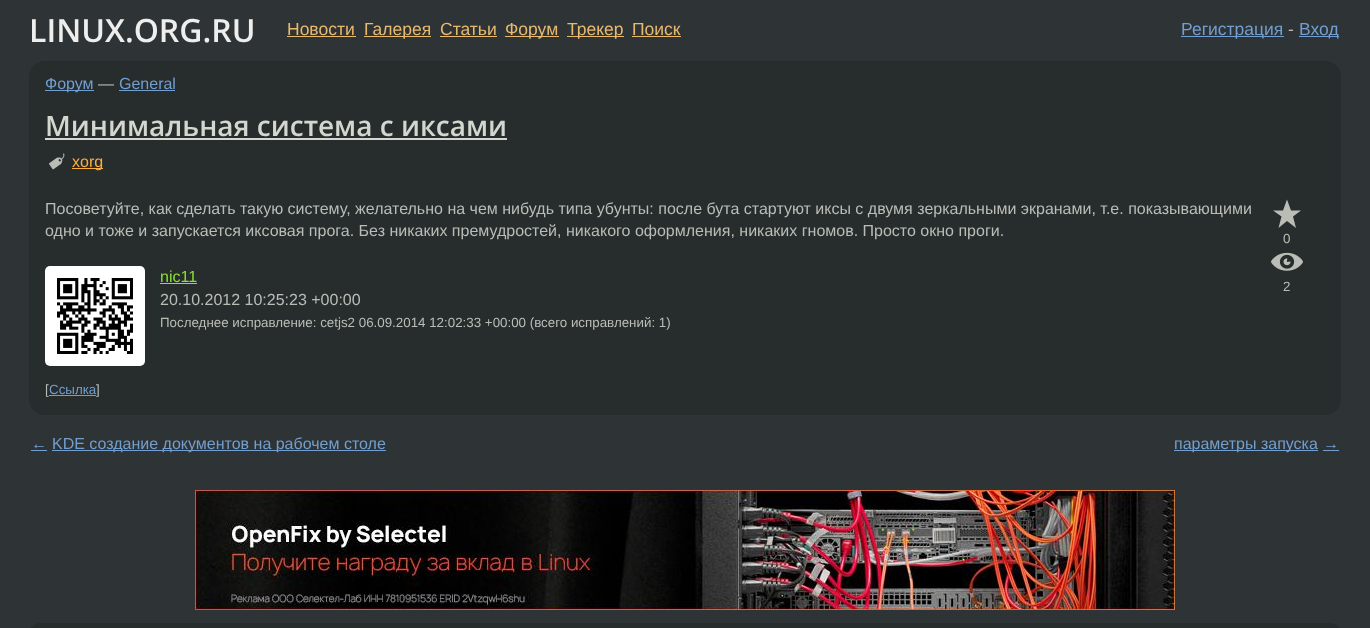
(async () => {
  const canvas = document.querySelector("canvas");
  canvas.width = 1370;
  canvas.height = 628;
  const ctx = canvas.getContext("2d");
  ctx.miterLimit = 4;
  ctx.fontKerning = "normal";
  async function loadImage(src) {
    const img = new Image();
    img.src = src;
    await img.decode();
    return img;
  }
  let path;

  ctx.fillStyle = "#2e3436";
  ctx.fillRect(0, 0, 1370, 628);
  for (const [x, y, w, h, color] of [
    [287, 36, 69, 1, "#e9b96e"],
    [364, 36, 67, 1, "#e9b96e"],
    [440, 36, 57, 1, "#e9b96e"],
    [505, 36, 54, 1, "#e9b96e"],
    [567, 36, 57, 1, "#e9b96e"],
    [632, 36, 49, 1, "#e9b96e"],
    [1181, 36, 103, 1, "#729fcf"],
    [1299, 36, 40, 1, "#729fcf"],
  ]) {
    ctx.fillStyle = color;
    ctx.fillRect(x, y, w, h);
  }
  ctx.fillStyle = "#272c2d";
  ctx.beginPath();
  ctx.roundRect(29, 61, 1312, 354, 16);
  ctx.fill();
  for (const [x, y, w, h, color] of [
    [45, 90, 49, 1, "#729fcf"],
    [119, 90, 56, 1, "#729fcf"],
    [45, 138, 462, 2, "#d3d7cf"],
  ]) {
    ctx.fillStyle = color;
    ctx.fillRect(x, y, w, h);
  }
  ctx.drawImage(await loadImage("img/1.png"), 49, 153, 16, 17);
  ctx.fillStyle = "#fcaf3e";
  ctx.fillRect(72, 168, 31, 1);
  ctx.fillStyle = "#babdb6";
  path = new Path2D("M1287 199.5L1291 210.5H1301L1293 216.5L1296 228L1287 221L1278.5 228L1281.5 216.5L1273 210.5H1283Z");
  ctx.fill(path);
  ctx.drawImage(await loadImage("img/2.png"), 1271, 252, 32, 19);
  ctx.drawImage(await loadImage("img/3.png"), 45, 266, 100, 100);
  for (const [x, y, w, h, color] of [
    [160, 283, 37, 1, "#8ae234"],
    [49, 395, 47, 1, "#729fcf"],
    [31, 450, 16, 1, "#729fcf"],
    [52, 450, 334, 1, "#729fcf"],
    [1174, 450, 144, 1, "#729fcf"],
    [1323, 450, 16, 1, "#729fcf"],
  ]) {
    ctx.fillStyle = color;
    ctx.fillRect(x, y, w, h);
  }
  ctx.drawImage(await loadImage("img/4.png"), 195, 490, 980, 120);
  ctx.fillStyle = "#272c2d";
  ctx.beginPath();
  ctx.roundRect(29, 623, 1312, 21, 16);
  ctx.fill();
  ctx.font = "600 32px Open Sans";
  ctx.fillStyle = "#eeeeec";
  ctx.fillText("LINUX.ORG.RU", 29, 42);
  ctx.font = "17.5px Liberation Sans";
  ctx.fillStyle = "#e9b96e";
  for (const [text, x, y] of [
    ["Новости", 287, 35],
    ["Галерея", 364, 35],
    ["Статьи", 440, 35],
    ["Форум", 505, 35],
    ["Трекер", 567, 35],
    ["Поиск", 632, 35],
  ]) {
    ctx.fillText(text, x, y);
  }
  ctx.fillStyle = "#729fcf";
  ctx.fillText("Регистрация", 1181, 35);
  ctx.fillStyle = "#babdb6";
  ctx.fillText("-", 1288, 35);
  ctx.fillStyle = "#729fcf";
  ctx.fillText("Вход", 1299, 35);
  ctx.font = "16px Liberation Sans";
  ctx.fillText("Форум", 45, 89);
  ctx.fillStyle = "#babdb6";
  ctx.fillText("—", 98, 89);
  ctx.fillStyle = "#729fcf";
  ctx.fillText("General", 119, 89);
  ctx.font = "600 28px Open Sans";
  ctx.fillStyle = "#d3d7cf";
  ctx.fillText("Минимальная система с иксами", 45, 136);
  ctx.font = "16px Liberation Sans";
  ctx.fillStyle = "#fcaf3e";
  ctx.fillText("xorg", 72, 167);
  ctx.fillStyle = "#babdb6";
  ctx.fillText("Посоветуйте, как сделать такую систему, желательно на чем нибудь типа убунты: после бута стартуют иксы с двумя зеркальными экранами, т.е. показывающими", 45, 214);
  ctx.fillText("одно и тоже и запускается иксовая прога. Без никаких премудростей, никакого оформления, никаких гномов. Просто окно проги.", 45, 236);
  ctx.font = "13.35px Liberation Sans";
  ctx.fillText("0", 1283, 243);
  ctx.fillText("2", 1283, 291);
  ctx.font = "16px Liberation Sans";
  ctx.fillStyle = "#8ae234";
  ctx.fillText("nic11", 160, 282);
  ctx.fillStyle = "#babdb6";
  ctx.fillText("20.10.2012 10:25:23 +00:00", 160, 305);
  ctx.font = "13.35px Liberation Sans";
  ctx.fillText("Последнее исправление: cetjs2 06.09.2014 12:02:33 +00:00 (всего исправлений: 1)", 160, 327);
  ctx.fillText("[", 45, 394);
  ctx.fillStyle = "#729fcf";
  ctx.fillText("Ссылка", 49, 394);
  ctx.fillStyle = "#babdb6";
  ctx.fillText("]", 96, 394);
  ctx.font = "16px Liberation Sans";
  ctx.fillStyle = "#729fcf";
  for (const [text, x, y] of [
    ["←", 31, 449],
    ["KDE создание документов на рабочем столе", 52, 449],
    ["параметры запуска", 1174, 449],
    ["→", 1323, 449],
  ]) {
    ctx.fillText(text, x, y);
  }
})();
